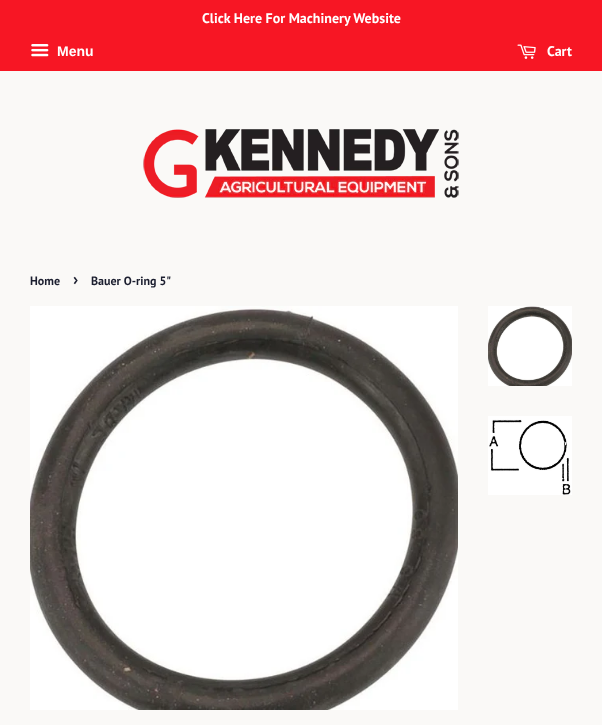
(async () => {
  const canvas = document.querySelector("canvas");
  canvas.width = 602;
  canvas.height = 725;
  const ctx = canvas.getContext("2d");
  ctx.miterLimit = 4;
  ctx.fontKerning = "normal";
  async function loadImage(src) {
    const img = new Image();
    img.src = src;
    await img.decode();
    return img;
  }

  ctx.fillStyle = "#faf9f7";
  ctx.fillRect(0, 0, 602, 725);
  ctx.fillStyle = "#f71624";
  ctx.fillRect(0, 0, 602, 71);
  ctx.drawImage(await loadImage("img/1.png"), 31, 44, 18, 13);
  ctx.drawImage(await loadImage("img/2.png"), 517, 44, 19, 15);
  ctx.drawImage(await loadImage("img/3.png"), 143, 129, 316, 69);
  ctx.drawImage(await loadImage("img/4.png"), 30, 306, 428, 404);
  ctx.drawImage(await loadImage("img/5.png"), 488, 306, 84, 80);
  ctx.drawImage(await loadImage("img/6.png"), 488, 416, 84, 79);
  ctx.font = "bold 14px PT Sans";
  ctx.fillStyle = "#ffffff";
  ctx.fillText("Click Here For Machinery Website", 202, 23);
  ctx.font = "bold 14px Liberation Sans";
  ctx.fillText("Menu", 57, 56);
  ctx.font = "bold 14px PT Sans";
  ctx.fillText("Cart", 547, 56);
  ctx.font = "bold 12px PT Sans";
  ctx.fillStyle = "#1b1e2f";
  ctx.fillText("Home", 30, 285);
  ctx.font = "bold 17px PT Sans";
  ctx.fillText("›", 73, 285);
  ctx.font = "bold 12px PT Sans";
  ctx.fillText("Bauer O-ring 5\"", 91, 285);
})();
